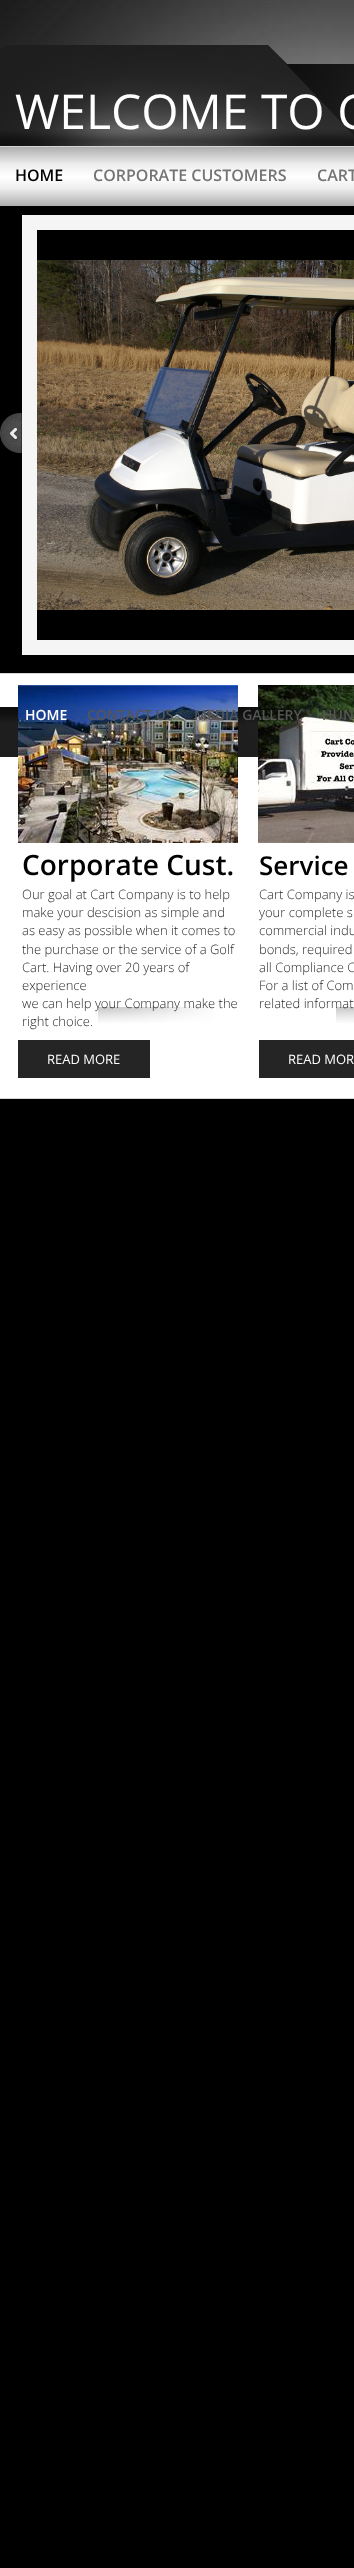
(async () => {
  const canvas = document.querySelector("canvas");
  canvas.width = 354;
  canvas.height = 2568;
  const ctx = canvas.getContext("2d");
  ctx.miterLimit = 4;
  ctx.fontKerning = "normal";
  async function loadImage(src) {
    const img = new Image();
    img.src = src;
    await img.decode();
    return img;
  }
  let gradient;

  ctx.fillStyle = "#000000";
  ctx.fillRect(0, 0, 354, 2568);
  ctx.drawImage(await loadImage("img/1.png"), 0, 0, 354, 64);
  ctx.drawImage(await loadImage("img/2.png"), 0, 45, 354, 101);
  gradient = ctx.createLinearGradient(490, 147, 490, 206);
  gradient.addColorStop(0, "#aeaeae");
  gradient.addColorStop(0.3, "#eeeeee");
  gradient.addColorStop(0.5, "#ffffff");
  gradient.addColorStop(0.7, "#eeeeee");
  gradient.addColorStop(1, "#aeaeae");
  ctx.fillStyle = gradient;
  ctx.fillRect(0, 147, 354, 59);
  ctx.fillStyle = "#d4d4d4";
  ctx.fillRect(0, 146, 354, 1);
  ctx.drawImage(await loadImage("img/3.png"), 0, 413, 22, 40);
  ctx.strokeStyle = "#f5f5f5";
  ctx.lineWidth = 15;
  ctx.strokeRect(29.5, 222.5, 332, 425);
  ctx.drawImage(await loadImage("img/4.png"), 37, 260, 317, 350);
  ctx.fillStyle = "#ffffff";
  ctx.beginPath();
  ctx.rect(-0.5, 673.5, 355, 425);
  ctx.fill();
  ctx.strokeStyle = "#d4d4d4";
  ctx.lineWidth = 1;
  ctx.stroke();
  ctx.drawImage(await loadImage("img/9.png"), 0, 707, 258, 50);
  ctx.drawImage(await loadImage("img/5.png"), 18, 685, 220, 158);
  ctx.drawImage(await loadImage("img/6.png"), 258, 685, 96, 158);
  ctx.drawImage(await loadImage("img/8.png"), 336, 1007, 18, 16);
  ctx.fillStyle = "#252525";
  ctx.fillRect(18, 1040, 132, 38);
  ctx.fillRect(259, 1040, 95, 38);
  ctx.font = "48px Open Sans";
  ctx.fillStyle = "#ffffff";
  ctx.fillText("WELCOME TO C", 15, 129);
  ctx.font = "600 16px Open Sans";
  ctx.fillStyle = "#000000";
  ctx.fillText("HOME", 15, 181);
  ctx.fillStyle = "#757474";
  ctx.fillText("CORPORATE CUSTOMERS", 93, 181);
  ctx.fillText("CART", 317, 181);
  ctx.font = "600 28px Open Sans";
  ctx.fillStyle = "#000000";
  ctx.fillText("Corporate Cust.", 22, 875);
  ctx.font = "600 26px Open Sans";
  ctx.fillText("Service", 259, 875);
  ctx.font = "300 13px Open Sans";
  ctx.fillStyle = "#292929";
  for (const [text, x, y] of [
    ["Our goal at Cart Company is to help", 22, 899],
    ["make your descision as simple and", 22, 917],
    ["as easy as possible when it comes to", 22, 935],
    ["the purchase or the service of a Golf", 22, 954],
    ["Cart. Having over 20 years of", 22, 972],
    ["experience", 22, 990],
    ["we can help your Company make the", 22, 1008],
    ["right choice.", 22, 1026],
    ["Cart Company is", 259, 899],
    ["your complete s", 259, 917],
    ["commercial indu", 259, 935],
    ["bonds, required", 259, 954],
    ["all Compliance C", 259, 972],
    ["For a list of Com", 259, 990],
    ["related informat", 259, 1008],
  ]) {
    ctx.fillText(text, x, y);
  }
  ctx.drawImage(await loadImage("img/7.png"), 98, 1007, 116, 16);
  ctx.font = "13px Open Sans";
  ctx.fillStyle = "#ffffff";
  ctx.fillText("READ MORE", 47, 1064);
  ctx.fillText("READ MOR", 288, 1064);
  ctx.font = "600 14px Open Sans";
  ctx.fillText("HOME", 25, 720);
  ctx.fillStyle = "#555555";
  for (const [text, x, y] of [
    ["CONTACT US", 87, 720],
    ["MEDIA GALLERY", 194, 720],
    ["HUN", 322, 720],
  ]) {
    ctx.fillText(text, x, y);
  }
})();
